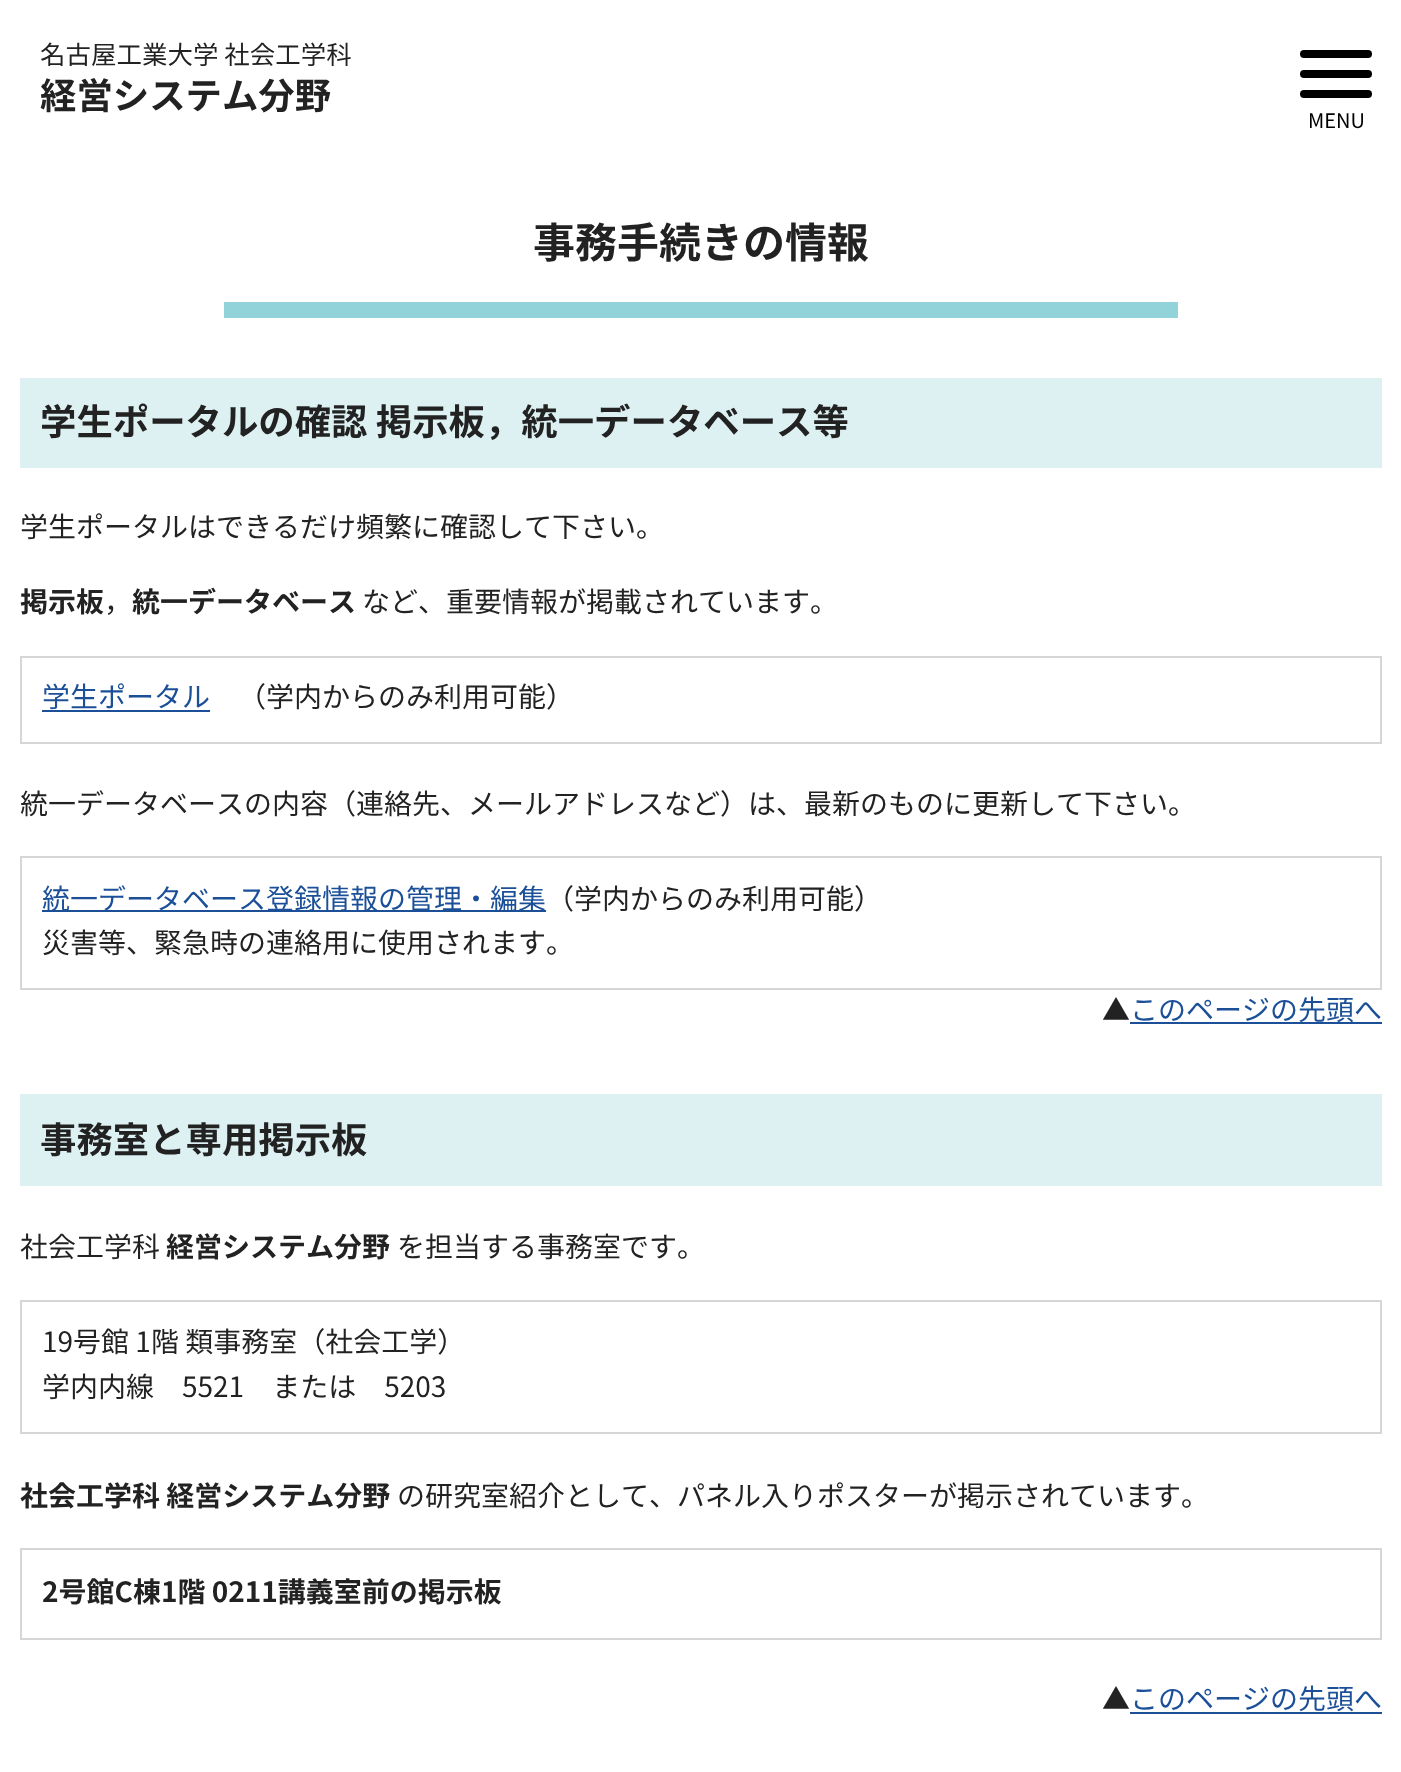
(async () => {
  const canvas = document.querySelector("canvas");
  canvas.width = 1401;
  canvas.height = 1772;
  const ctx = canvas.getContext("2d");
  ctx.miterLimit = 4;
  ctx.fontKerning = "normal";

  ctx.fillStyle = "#ffffff";
  ctx.fillRect(0, 0, 1401, 1772);
  ctx.fillStyle = "#91d3d9";
  ctx.fillRect(224, 302, 954, 16);
  ctx.fillStyle = "#ddf1f3";
  ctx.fillRect(20, 378, 1362, 90);
  ctx.strokeStyle = "#d6d6d6";
  ctx.lineWidth = 2;
  ctx.strokeRect(21, 657, 1360, 86);
  ctx.fillStyle = "#1b4f98";
  ctx.fillRect(42, 710, 168, 2);
  ctx.strokeRect(21, 857, 1360, 132);
  for (const [x, y, w, h, color] of [
    [42, 910, 504, 2, "#1b4f98"],
    [1130, 1022, 252, 2, "#1b4f98"],
    [20, 1094, 1362, 92, "#ddf1f3"],
  ]) {
    ctx.fillStyle = color;
    ctx.fillRect(x, y, w, h);
  }
  ctx.strokeRect(21, 1301, 1360, 132);
  ctx.strokeRect(21, 1549, 1360, 90);
  ctx.fillStyle = "#1b4f98";
  ctx.fillRect(1130, 1712, 252, 2);
  ctx.fillStyle = "#000000";
  ctx.beginPath();
  ctx.roundRect(1300, 50, 72, 8, 4);
  ctx.fill();
  ctx.beginPath();
  ctx.roundRect(1300, 70, 72, 8, 4);
  ctx.fill();
  ctx.beginPath();
  ctx.roundRect(1300, 90, 72, 8, 4);
  ctx.fill();
  ctx.font = "25.5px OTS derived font";
  ctx.fillStyle = "#222222";
  ctx.fillText("名古屋工業大学 社会工学科", 40, 64);
  ctx.font = "36.4px 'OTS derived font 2'";
  ctx.fillText("経営システム分野", 40, 109);
  ctx.font = "42px 'OTS derived font 2'";
  ctx.fillText("事務手続きの情報", 533, 258);
  ctx.font = "36.4px 'OTS derived font 2'";
  ctx.fillText("学生ポータルの確認 掲示板，統一データベース等", 40, 435);
  ctx.font = "28px OTS derived font";
  ctx.fillText("学生ポータルはできるだけ頻繁に確認して下さい。", 20, 537);
  ctx.font = "28px 'OTS derived font 2'";
  ctx.fillText("掲示板", 20, 612);
  ctx.font = "28px OTS derived font";
  ctx.fillText("，", 104, 612);
  ctx.font = "28px 'OTS derived font 2'";
  ctx.fillText("統一データベース", 132, 612);
  ctx.font = "28px OTS derived font";
  ctx.fillText("など、重要情報が掲載されています。", 362, 612);
  ctx.fillStyle = "#1b4f98";
  ctx.fillText("学生ポータル", 42, 707);
  ctx.fillStyle = "#222222";
  ctx.fillText("（学内からのみ利用可能）", 238, 707);
  ctx.fillText("統一データベースの内容（連絡先、メールアドレスなど）は、最新のものに更新して下さい。", 20, 814);
  ctx.fillStyle = "#1b4f98";
  ctx.fillText("統一データベース登録情報の管理・編集", 42, 909);
  ctx.fillStyle = "#222222";
  for (const [text, x, y] of [
    ["（学内からのみ利用可能）", 546, 909],
    ["災害等、緊急時の連絡用に使用されます。", 42, 953],
    ["▲", 1102, 1020],
  ]) {
    ctx.fillText(text, x, y);
  }
  ctx.fillStyle = "#1b4f98";
  ctx.fillText("このページの先頭へ", 1130, 1020);
  ctx.font = "36.4px 'OTS derived font 2'";
  ctx.fillStyle = "#222222";
  ctx.fillText("事務室と専用掲示板", 40, 1153);
  ctx.font = "28px OTS derived font";
  ctx.fillText("社会工学科", 20, 1257);
  ctx.font = "28px 'OTS derived font 2'";
  ctx.fillText("経営システム分野", 166, 1257);
  ctx.font = "28px OTS derived font";
  for (const [text, x, y] of [
    ["を担当する事務室です。", 397, 1257],
    ["19号館 1階 類事務室（社会工学）", 42, 1352],
    ["学内内線　5521　または　5203", 42, 1397],
  ]) {
    ctx.fillText(text, x, y);
  }
  ctx.font = "28px 'OTS derived font 2'";
  ctx.fillText("社会工学科 経営システム分野", 20, 1506);
  ctx.font = "28px OTS derived font";
  ctx.fillText("の研究室紹介として、パネル入りポスターが掲示されています。", 397, 1506);
  ctx.font = "28px 'OTS derived font 2'";
  ctx.fillText("2号館C棟1階 0211講義室前の掲示板", 42, 1602);
  ctx.font = "28px OTS derived font";
  ctx.fillText("▲", 1102, 1709);
  ctx.fillStyle = "#1b4f98";
  ctx.fillText("このページの先頭へ", 1130, 1709);
  ctx.font = "20px OTS derived font";
  ctx.fillStyle = "#000000";
  ctx.fillText("MENU", 1308, 128);
})();
